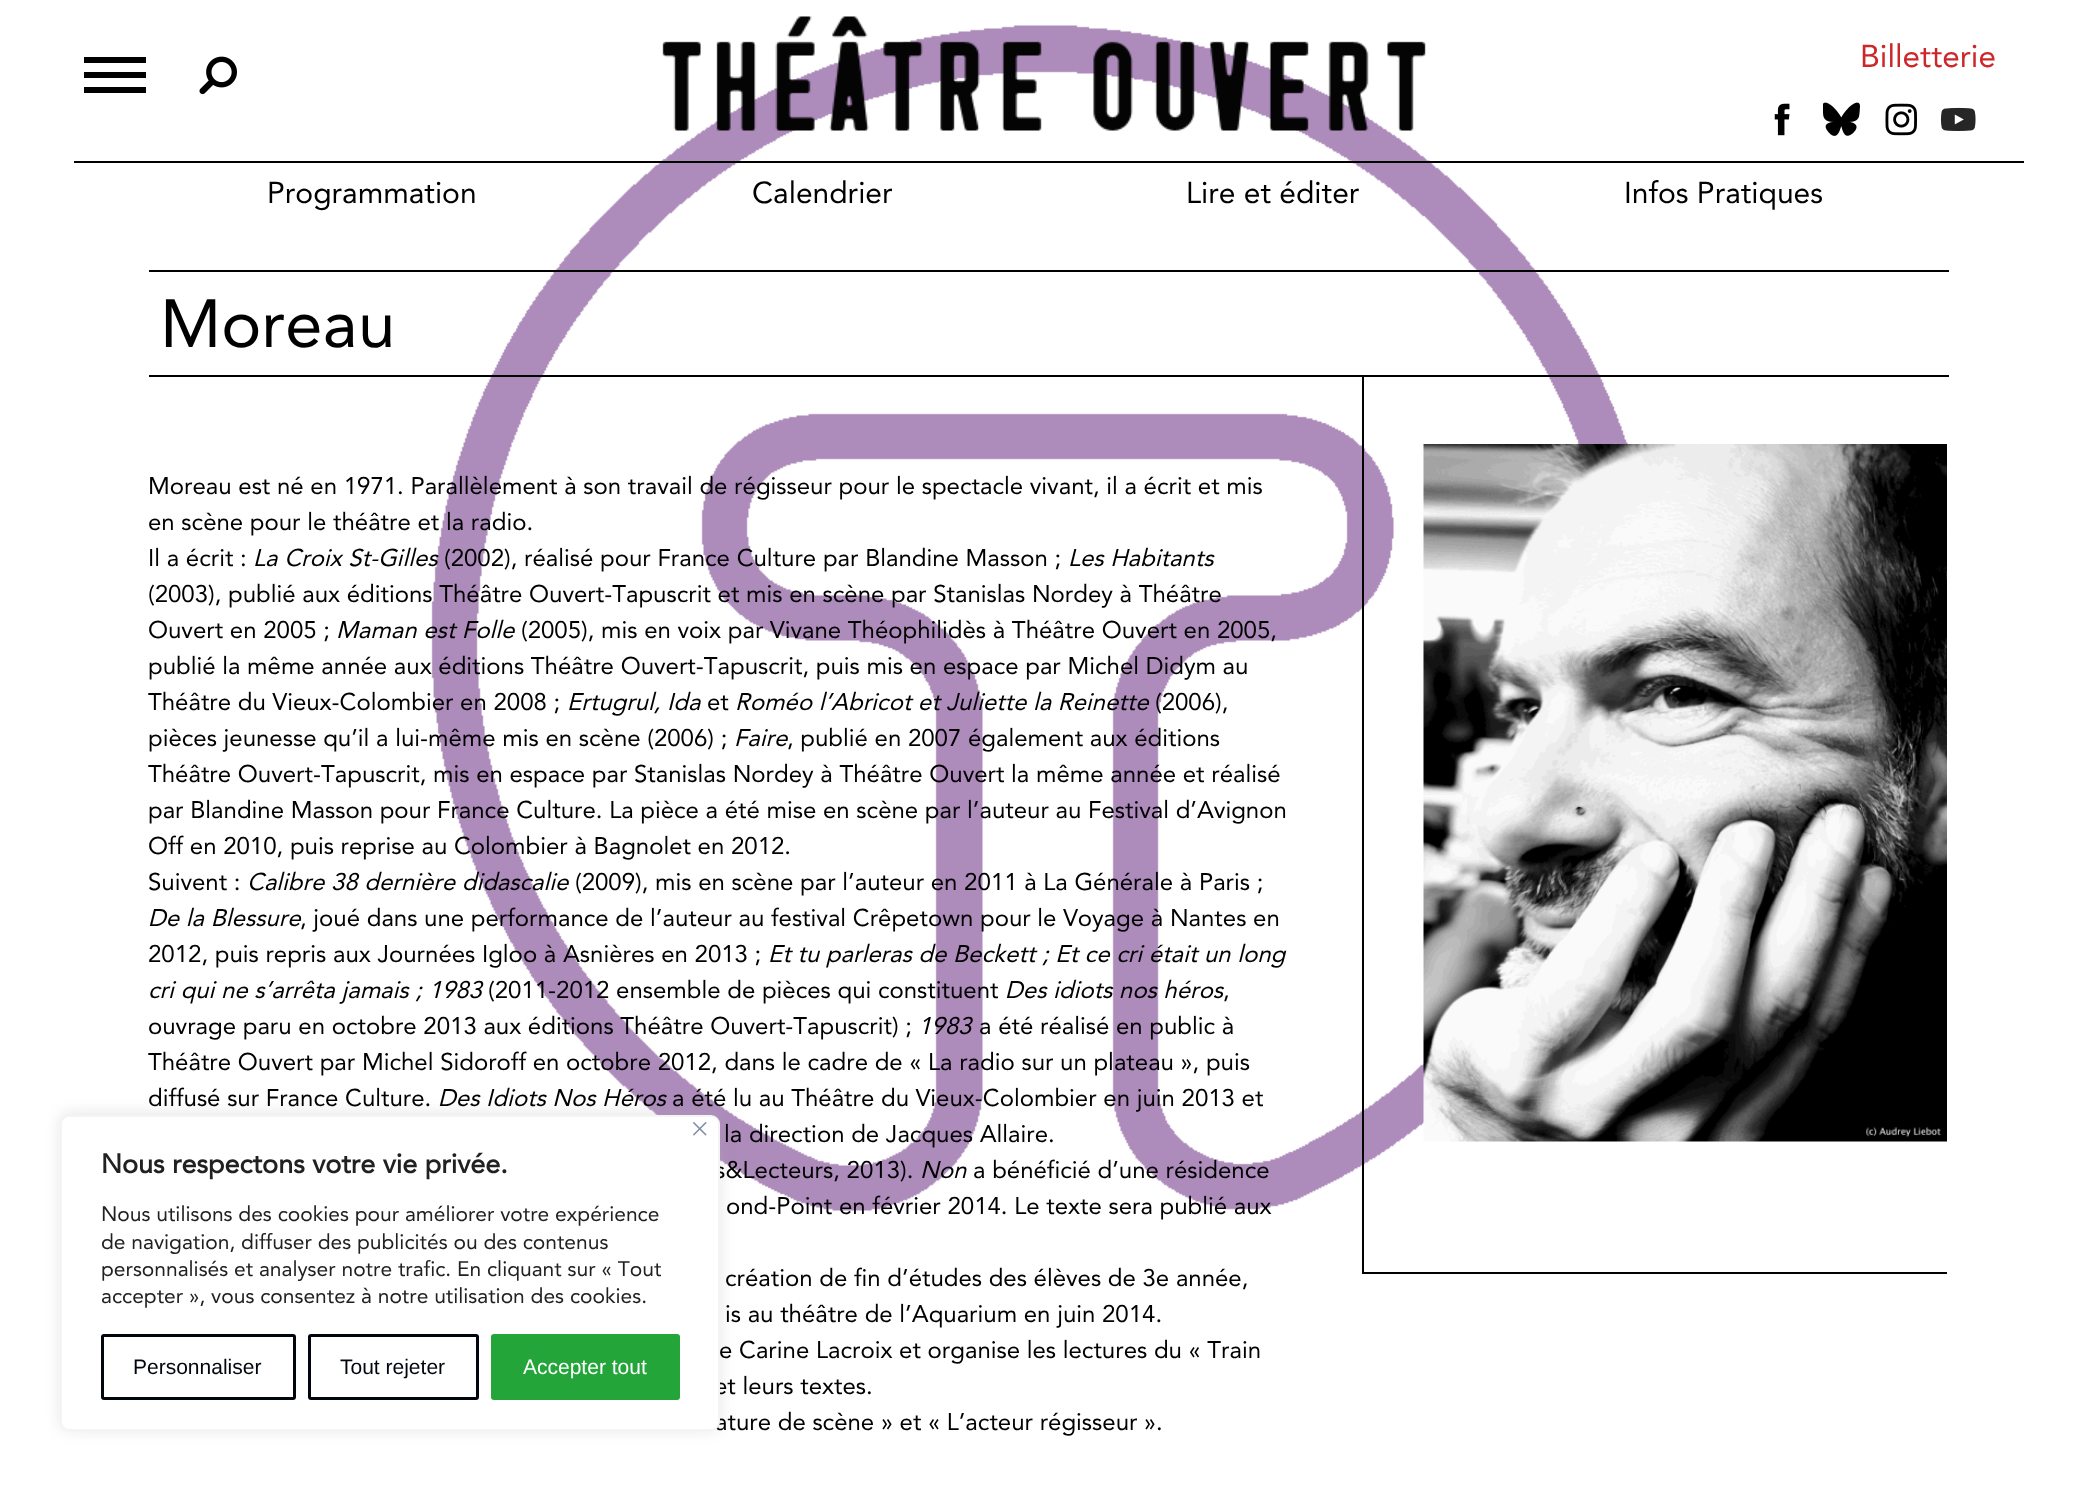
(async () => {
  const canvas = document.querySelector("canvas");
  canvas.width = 2095;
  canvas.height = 1491;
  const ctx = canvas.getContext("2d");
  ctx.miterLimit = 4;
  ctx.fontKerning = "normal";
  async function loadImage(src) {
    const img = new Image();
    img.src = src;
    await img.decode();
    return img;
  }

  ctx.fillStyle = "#ffffff";
  ctx.fillRect(0, 0, 2095, 1491);
  ctx.drawImage(await loadImage("img/1.png"), 431, 25, 1197, 1186);
  for (const [x, y, w, h, color] of [
    [74, 161, 1950, 2, "#000000"],
    [84, 72, 62, 6, "#000000"],
    [84, 57, 62, 6, "#000000"],
    [84, 87, 62, 6, "#000000"],
  ]) {
    ctx.fillStyle = color;
    ctx.fillRect(x, y, w, h);
  }
  ctx.drawImage(await loadImage("img/2.png"), 199, 56, 38, 39);
  ctx.drawImage(await loadImage("img/3.png"), 662, 16, 764, 115);
  ctx.drawImage(await loadImage("img/4.png"), 1774, 103, 16, 33);
  ctx.drawImage(await loadImage("img/5.png"), 1823, 102, 37, 34);
  ctx.drawImage(await loadImage("img/6.png"), 1885, 103, 32, 33);
  ctx.drawImage(await loadImage("img/7.png"), 1940, 107, 36, 24);
  for (const [x, y, w, h, color] of [
    [149, 270, 1800, 2, "#000000"],
    [149, 375, 1800, 2, "#000000"],
    [1362, 377, 2, 897, "#000000"],
  ]) {
    ctx.fillStyle = color;
    ctx.fillRect(x, y, w, h);
  }
  ctx.drawImage(await loadImage("img/8.png"), 1423, 444, 524, 698);
  ctx.fillRect(1364, 1272, 583, 2);
  ctx.fillStyle = "rgba(172, 171, 171, 0.3)";
  ctx.filter = "blur(7.5px)";
  ctx.beginPath();
  ctx.roundRect(60, 1113, 660, 317, 9);
  ctx.fill();
  ctx.filter = "none";
  ctx.font = "31.5px Avenir";
  ctx.fillStyle = "#cd2729";
  ctx.fillText("Billetterie", 1860, 67);
  ctx.font = "30px Avenir";
  ctx.fillStyle = "#000000";
  for (const [text, x, y] of [
    ["Programmation", 267, 203],
    ["Calendrier", 752, 203],
    ["Lire et éditer", 1186, 203],
    ["Infos Pratiques", 1624, 203],
  ]) {
    ctx.fillText(text, x, y);
  }
  ctx.font = "67.5px Avenir";
  ctx.fillText("Moreau", 160, 347);
  ctx.font = "24px Avenir";
  for (const [text, x, y] of [
    ["Moreau est né en 1971. Parallèlement à son travail de régisseur pour le spectacle vivant, il a écrit et mis", 148, 494],
    ["en scène pour le théâtre et la radio.", 148, 530],
    ["Il a écrit :", 148, 566],
  ]) {
    ctx.fillText(text, x, y);
  }
  ctx.font = "italic 24px Avenir";
  ctx.fillText("La Croix St-Gilles", 253, 566);
  ctx.font = "24px Avenir";
  ctx.fillText("(2002), réalisé pour France Culture par Blandine Masson ;", 444, 566);
  ctx.font = "italic 24px Avenir";
  ctx.fillText("Les Habitants", 1068, 566);
  ctx.font = "24px Avenir";
  ctx.fillText("(2003), publié aux éditions Théâtre Ouvert-Tapuscrit et mis en scène par Stanislas Nordey à Théâtre", 148, 602);
  ctx.fillText("Ouvert en 2005 ;", 148, 638);
  ctx.font = "italic 24px Avenir";
  ctx.fillText("Maman est Folle", 336, 638);
  ctx.font = "24px Avenir";
  for (const [text, x, y] of [
    ["(2005), mis en voix par Vivane Théophilidès à Théâtre Ouvert en 2005,", 521, 638],
    ["publié la même année aux éditions Théâtre Ouvert-Tapuscrit, puis mis en espace par Michel Didym au", 148, 674],
    ["Théâtre du Vieux-Colombier en 2008 ;", 148, 710],
  ]) {
    ctx.fillText(text, x, y);
  }
  ctx.font = "italic 24px Avenir";
  ctx.fillText("Ertugrul, Ida", 567, 710);
  ctx.font = "24px Avenir";
  ctx.fillText("et", 707, 710);
  ctx.font = "italic 24px Avenir";
  ctx.fillText("Roméo l’Abricot et Juliette la Reinette", 735, 710);
  ctx.font = "24px Avenir";
  ctx.fillText("(2006),", 1155, 710);
  ctx.fillText("pièces jeunesse qu’il a lui-même mis en scène (2006) ;", 148, 746);
  ctx.font = "italic 24px Avenir";
  ctx.fillText("Faire", 734, 746);
  ctx.font = "24px Avenir";
  for (const [text, x, y] of [
    [", publié en 2007 également aux éditions", 787, 746],
    ["Théâtre Ouvert-Tapuscrit, mis en espace par Stanislas Nordey à Théâtre Ouvert la même année et réalisé", 148, 782],
    ["par Blandine Masson pour France Culture. La pièce a été mise en scène par l’auteur au Festival d’Avignon", 148, 818],
    ["Off en 2010, puis reprise au Colombier à Bagnolet en 2012.", 148, 854],
    ["Suivent :", 148, 890],
  ]) {
    ctx.fillText(text, x, y);
  }
  ctx.font = "italic 24px Avenir";
  ctx.fillText("Calibre 38 dernière didascalie", 247, 890);
  ctx.font = "24px Avenir";
  ctx.fillText("(2009), mis en scène par l’auteur en 2011 à La Générale à Paris ;", 575, 890);
  ctx.font = "italic 24px Avenir";
  ctx.fillText("De la Blessure", 148, 926);
  ctx.font = "24px Avenir";
  ctx.fillText(", joué dans une performance de l’auteur au festival Crêpetown pour le Voyage à Nantes en", 300, 926);
  ctx.fillText("2012, puis repris aux Journées Igloo à Asnières en 2013 ;", 148, 962);
  ctx.font = "italic 24px Avenir";
  ctx.fillText("Et tu parleras de Beckett ; Et ce cri était un long", 768, 962);
  ctx.fillText("cri qui ne s’arrêta jamais ; 1983", 148, 998);
  ctx.font = "24px Avenir";
  ctx.fillText("(2011-2012 ensemble de pièces qui constituent", 488, 998);
  ctx.font = "italic 24px Avenir";
  ctx.fillText("Des idiots nos héros", 1005, 998);
  ctx.font = "24px Avenir";
  ctx.fillText(",", 1223, 998);
  ctx.fillText("ouvrage paru en octobre 2013 aux éditions Théâtre Ouvert-Tapuscrit) ;", 148, 1034);
  ctx.font = "italic 24px Avenir";
  ctx.fillText("1983", 918, 1034);
  ctx.font = "24px Avenir";
  for (const [text, x, y] of [
    ["a été réalisé en public à", 979, 1034],
    ["Théâtre Ouvert par Michel Sidoroff en octobre 2012, dans le cadre de « La radio sur un plateau », puis", 148, 1070],
    ["diffusé sur France Culture.", 148, 1106],
  ]) {
    ctx.fillText(text, x, y);
  }
  ctx.font = "italic 24px Avenir";
  ctx.fillText("Des Idiots Nos Héros", 438, 1106);
  ctx.font = "24px Avenir";
  for (const [text, x, y] of [
    ["a été lu au Théâtre du Vieux-Colombier en juin 2013 et", 672, 1106],
    ["la direction de Jacques Allaire.", 724, 1142],
    ["s&Lecteurs, 2013).", 715, 1178],
  ]) {
    ctx.fillText(text, x, y);
  }
  ctx.font = "italic 24px Avenir";
  ctx.fillText("Non", 920, 1178);
  ctx.font = "24px Avenir";
  for (const [text, x, y] of [
    ["a bénéficié d’une résidence", 973, 1178],
    ["ond-Point en février 2014. Le texte sera publié aux", 726, 1214],
    ["création de fin d’études des élèves de 3e année,", 725, 1286],
    ["is au théâtre de l’Aquarium en juin 2014.", 725, 1322],
    ["e Carine Lacroix et organise les lectures du « Train", 719, 1358],
    ["et leurs textes.", 714, 1394],
    ["ature de scène » et « L’acteur régisseur ».", 715, 1430],
  ]) {
    ctx.fillText(text, x, y);
  }
  ctx.fillStyle = "#ffffff";
  ctx.beginPath();
  ctx.roundRect(61, 1116, 658, 314, 8);
  ctx.fill();
  ctx.strokeStyle = "#f4f4f4";
  ctx.lineWidth = 2;
  ctx.stroke();
  ctx.drawImage(await loadImage("img/9.png"), 693, 1122, 14, 14);
  ctx.font = "bold 27px Avenir";
  ctx.fillStyle = "#212121";
  ctx.fillText("Nous respectons votre vie privée.", 101, 1173);
  ctx.font = "21px Avenir";
  for (const [text, x, y] of [
    ["Nous utilisons des cookies pour améliorer votre expérience", 101, 1221],
    ["de navigation, diffuser des publicités ou des contenus", 101, 1249],
    ["personnalisés et analyser notre trafic. En cliquant sur « Tout", 101, 1276],
    ["accepter », vous consentez à notre utilisation des cookies.", 101, 1303],
  ]) {
    ctx.fillText(text, x, y);
  }
  ctx.beginPath();
  ctx.roundRect(102.5, 1335.5, 192, 63, 1.5);
  ctx.strokeStyle = "#01060e";
  ctx.lineWidth = 3;
  ctx.stroke();
  ctx.font = "21px Liberation Sans";
  ctx.fillStyle = "#01060e";
  ctx.fillText("Personnaliser", 133, 1374);
  ctx.beginPath();
  ctx.roundRect(309.5, 1335.5, 168, 63, 1.5);
  ctx.stroke();
  ctx.fillText("Tout rejeter", 340, 1374);
  ctx.fillStyle = "#23a53a";
  ctx.beginPath();
  ctx.roundRect(492.5, 1335.5, 186, 63, 1.5);
  ctx.fill();
  ctx.strokeStyle = "#23a53a";
  ctx.stroke();
  ctx.fillStyle = "#ffffff";
  ctx.fillText("Accepter tout", 523, 1374);
})();
